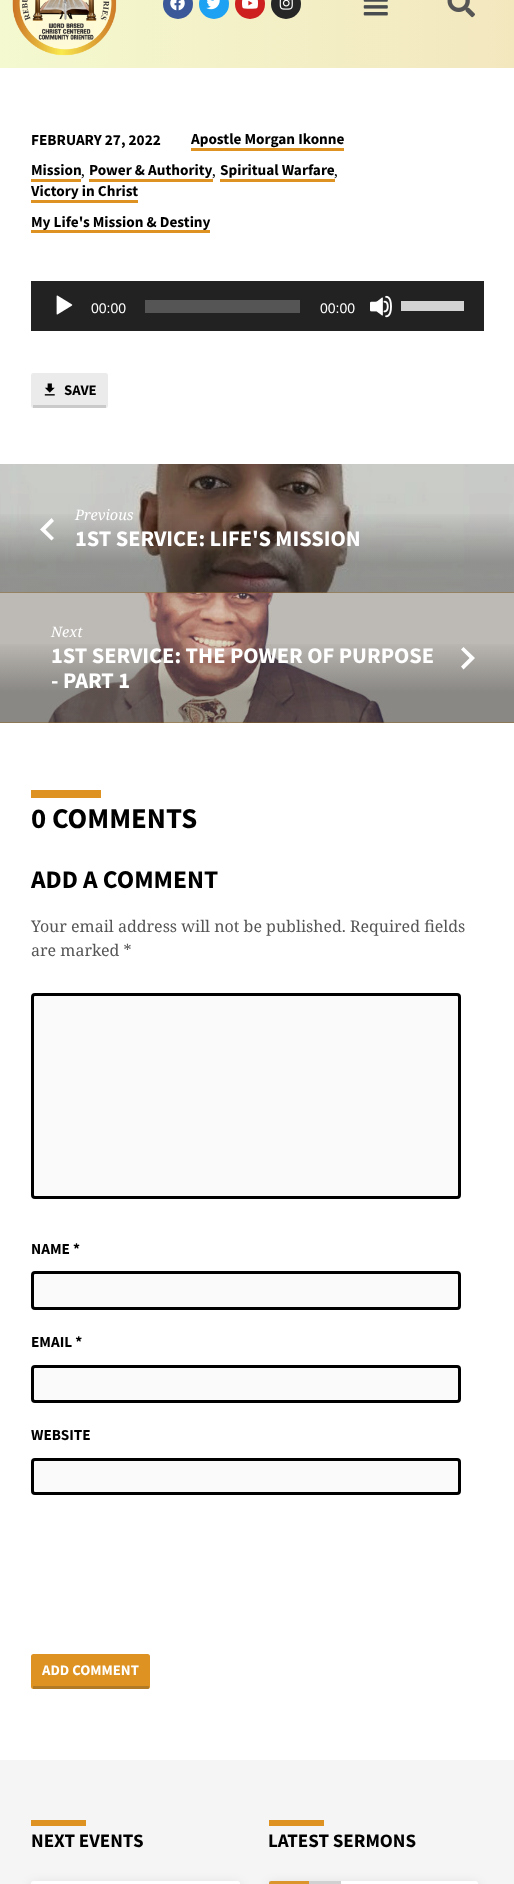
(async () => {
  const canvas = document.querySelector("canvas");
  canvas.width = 514;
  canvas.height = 1884;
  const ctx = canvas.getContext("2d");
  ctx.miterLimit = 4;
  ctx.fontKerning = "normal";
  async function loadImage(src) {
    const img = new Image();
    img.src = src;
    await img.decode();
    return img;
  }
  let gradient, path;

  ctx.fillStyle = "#ffffff";
  ctx.fillRect(0, 0, 514, 1884);
  gradient = ctx.createLinearGradient(0, 3.1, 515, 3.1);
  gradient.addColorStop(0, "#f4f9cf");
  gradient.addColorStop(1, "#f3e7be");
  ctx.fillStyle = gradient;
  ctx.fillRect(0, 0, 514, 68);
  ctx.drawImage(await loadImage("img/1.png"), 12, 0, 105, 56);
  ctx.fillStyle = "#3b5998";
  ctx.beginPath();
  ctx.arc(178, 4, 15, 0, Math.PI * 2);
  ctx.fill();
  ctx.drawImage(await loadImage("img/2.png"), 170, 0, 15, 11);
  ctx.fillStyle = "#1da1f2";
  ctx.beginPath();
  ctx.arc(214, 4, 15, 0, Math.PI * 2);
  ctx.fill();
  ctx.drawImage(await loadImage("img/3.png"), 206, 0, 14, 10);
  ctx.fillStyle = "#cd201f";
  ctx.beginPath();
  ctx.arc(250, 4, 15, 0, Math.PI * 2);
  ctx.fill();
  ctx.drawImage(await loadImage("img/4.png"), 242, 0, 16, 9);
  ctx.fillStyle = "#262626";
  ctx.beginPath();
  ctx.arc(286, 4, 15, 0, Math.PI * 2);
  ctx.fill();
  ctx.drawImage(await loadImage("img/5.png"), 279, 0, 14, 10);
  ctx.drawImage(await loadImage("img/6.png"), 363, 0, 25, 16);
  ctx.drawImage(await loadImage("img/7.png"), 447, 0, 28, 18);
  for (const [x, y, w, h, color] of [
    [191, 148, 153, 3, "#dd9221"],
    [31, 179, 50, 3, "#dd9221"],
    [89, 179, 124, 3, "#dd9221"],
    [220, 179, 115, 3, "#dd9221"],
    [31, 200, 107, 3, "#dd9221"],
    [31, 230, 179, 3, "#dd9221"],
    [31, 281, 453, 50, "#222222"],
  ]) {
    ctx.fillStyle = color;
    ctx.fillRect(x, y, w, h);
  }
  ctx.drawImage(await loadImage("img/8.png"), 56, 295, 17, 20);
  ctx.fillStyle = "#555555";
  ctx.fillRect(145, 300, 155, 13);
  ctx.drawImage(await loadImage("img/9.png"), 370, 295, 22, 23);
  ctx.fillStyle = "#d2d2d2";
  ctx.fillRect(401, 301, 63, 10);
  ctx.fillStyle = "#ebebeb";
  ctx.beginPath();
  ctx.roundRect(31, 373, 77, 35, 2.5);
  ctx.fill();
  ctx.fillStyle = "#cacaca";
  ctx.fillRect(33, 405, 73, 3);
  ctx.drawImage(await loadImage("img/10.png"), 44, 383, 11, 13);
  ctx.fillStyle = "#c98928";
  ctx.fillRect(0, 464, 514, 259);
  ctx.drawImage(await loadImage("img/11.png"), 0, 464, 514, 129);
  gradient = ctx.createLinearGradient(260, 464, 260, 593);
  gradient.addColorStop(0, "rgba(6, 6, 6, 0)");
  gradient.addColorStop(0.36, "rgba(6, 6, 6, 0)");
  gradient.addColorStop(0.76, "rgba(6, 6, 6, 0.28)");
  gradient.addColorStop(1, "rgba(6, 6, 6, 0.28)");
  ctx.fillStyle = gradient;
  ctx.fillRect(0, 514, 514, 79);
  ctx.fillStyle = "#ffffff";
  path = new Path2D("M54 538L45.5 529.5L54 521L51.5 518L40 529.5L51.5 540.5Z");
  ctx.fill(path);
  ctx.drawImage(await loadImage("img/12.png"), 0, 592, 514, 131);
  gradient = ctx.createLinearGradient(260, 593, 260, 723);
  gradient.addColorStop(0, "rgba(6, 6, 6, 0)");
  gradient.addColorStop(0.36, "rgba(6, 6, 6, 0)");
  gradient.addColorStop(0.76, "rgba(6, 6, 6, 0.28)");
  gradient.addColorStop(1, "rgba(6, 6, 6, 0.28)");
  ctx.fillStyle = gradient;
  ctx.fillRect(0, 644, 514, 79);
  ctx.fillStyle = "#ffffff";
  path = new Path2D("M461 666.5L469.5 658L461 649.5L463.5 647L475 658L463.5 669.5Z");
  ctx.fill(path);
  ctx.fillStyle = "#dd9221";
  ctx.fillRect(31, 790, 70, 8);
  ctx.fillStyle = "#fafafa";
  ctx.beginPath();
  ctx.roundRect(32.5, 994.5, 427, 203, 2.5);
  ctx.fill();
  ctx.strokeStyle = "#000000";
  ctx.lineWidth = 3;
  ctx.stroke();
  ctx.beginPath();
  ctx.roundRect(32.5, 1272.5, 427, 36, 2.5);
  ctx.fill();
  ctx.stroke();
  ctx.beginPath();
  ctx.roundRect(32.5, 1366.5, 427, 35, 2.5);
  ctx.fill();
  ctx.stroke();
  ctx.beginPath();
  ctx.roundRect(32.5, 1459.5, 427, 34, 2.5);
  ctx.fill();
  ctx.stroke();
  ctx.fillStyle = "#dd9221";
  ctx.beginPath();
  ctx.roundRect(31, 1654, 119, 35, 2.5);
  ctx.fill();
  for (const [x, y, w, h, color] of [
    [33, 1686, 116, 3, "rgba(50, 50, 50, 0.25)"],
    [0, 1760, 514, 124, "#f5f5f5"],
    [31, 1820, 55, 6, "#dd9221"],
  ]) {
    ctx.fillStyle = color;
    ctx.fillRect(x, y, w, h);
  }
  ctx.fillStyle = "rgba(0, 0, 0, 0.12)";
  ctx.filter = "blur(6px)";
  ctx.beginPath();
  ctx.roundRect(31, 1884, 209, 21, 2.5);
  ctx.fill();
  ctx.filter = "none";
  ctx.fillStyle = "#ffffff";
  ctx.beginPath();
  ctx.roundRect(31, 1881, 209, 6, 2.5);
  ctx.fill();
  ctx.fillStyle = "#dd9221";
  ctx.fillRect(269, 1820, 55, 6);
  ctx.fillStyle = "rgba(0, 0, 0, 0.12)";
  ctx.filter = "blur(6px)";
  ctx.beginPath();
  ctx.roundRect(269, 1884, 209, 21, 2.5);
  ctx.fill();
  ctx.filter = "none";
  ctx.fillStyle = "#ffffff";
  ctx.beginPath();
  ctx.roundRect(269, 1881, 209, 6, 2.5);
  ctx.fill();
  ctx.fillStyle = "#d1d1d1";
  ctx.fillRect(269, 1881, 72, 3);
  ctx.fillStyle = "#dc952a";
  path = new Path2D("M271.5 1881H309V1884.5C309 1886 308 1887 306.5 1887H269V1883.5C269 1882 270 1881 271.5 1881Z");
  ctx.fill(path);
  ctx.font = "bold 15.25px Source Sans Pro";
  ctx.fillStyle = "#000000";
  for (const [text, x, y] of [
    ["FEBRUARY 27, 2022", 31, 145],
    ["Apostle Morgan Ikonne", 191, 144],
    ["Mission", 31, 175],
  ]) {
    ctx.fillText(text, x, y);
  }
  ctx.font = "15.25px Noto Serif";
  ctx.fillText(",", 81, 176);
  ctx.fillText(",", 212, 176);
  ctx.font = "bold 15.25px Source Sans Pro";
  ctx.fillText("Power & Authority", 89, 175);
  ctx.fillText("Spiritual Warfare", 220, 175);
  ctx.font = "15.25px Noto Serif";
  ctx.fillText(",", 334, 176);
  ctx.font = "bold 15.25px Source Sans Pro";
  ctx.fillText("Victory in Christ", 31, 196);
  ctx.fillText("My Life's Mission & Destiny", 31, 227);
  ctx.font = "14px Liberation Sans";
  ctx.fillStyle = "#ffffff";
  ctx.fillText("00:00", 91, 313);
  ctx.fillText("00:00", 320, 313);
  ctx.font = "bold 14.75px Source Sans Pro";
  ctx.fillStyle = "#000000";
  ctx.fillText("SAVE", 64, 395);
  ctx.font = "italic 14.5px Noto Serif";
  ctx.fillStyle = "#ffffff";
  ctx.fillText("Previous", 75, 520);
  ctx.font = "bold 22.4px Source Sans Pro";
  ctx.fillText("1ST SERVICE: LIFE'S MISSION", 75, 546);
  ctx.font = "italic 14.5px Noto Serif";
  ctx.fillText("Next", 51, 637);
  ctx.font = "bold 22.4px Source Sans Pro";
  ctx.fillText("1ST SERVICE: THE POWER OF PURPOSE", 51, 663);
  ctx.fillText("- PART 1", 51, 688);
  ctx.font = "bold 28.75px Source Sans Pro";
  ctx.fillStyle = "#000000";
  ctx.fillText("0 COMMENTS", 31, 828);
  ctx.font = "bold 25.5px Source Sans Pro";
  ctx.fillText("ADD A COMMENT", 31, 888);
  ctx.font = "16px Noto Serif";
  ctx.fillStyle = "#555555";
  ctx.fillText("Your email address will not be published. Required fields", 31, 932);
  ctx.fillText("are marked *", 31, 956);
  ctx.font = "bold 15.25px Source Sans Pro";
  ctx.fillStyle = "#000000";
  for (const [text, x, y] of [
    ["NAME *", 31, 1254],
    ["EMAIL *", 31, 1347],
    ["WEBSITE", 31, 1440],
  ]) {
    ctx.fillText(text, x, y);
  }
  ctx.font = "bold 14.75px Source Sans Pro";
  ctx.fillStyle = "#ffffff";
  ctx.fillText("ADD COMMENT", 42, 1675);
  ctx.font = "bold 19px Source Sans Pro";
  ctx.fillStyle = "#000000";
  ctx.fillText("NEXT EVENTS", 31, 1847);
  ctx.fillText("LATEST SERMONS", 268, 1847);
})();
